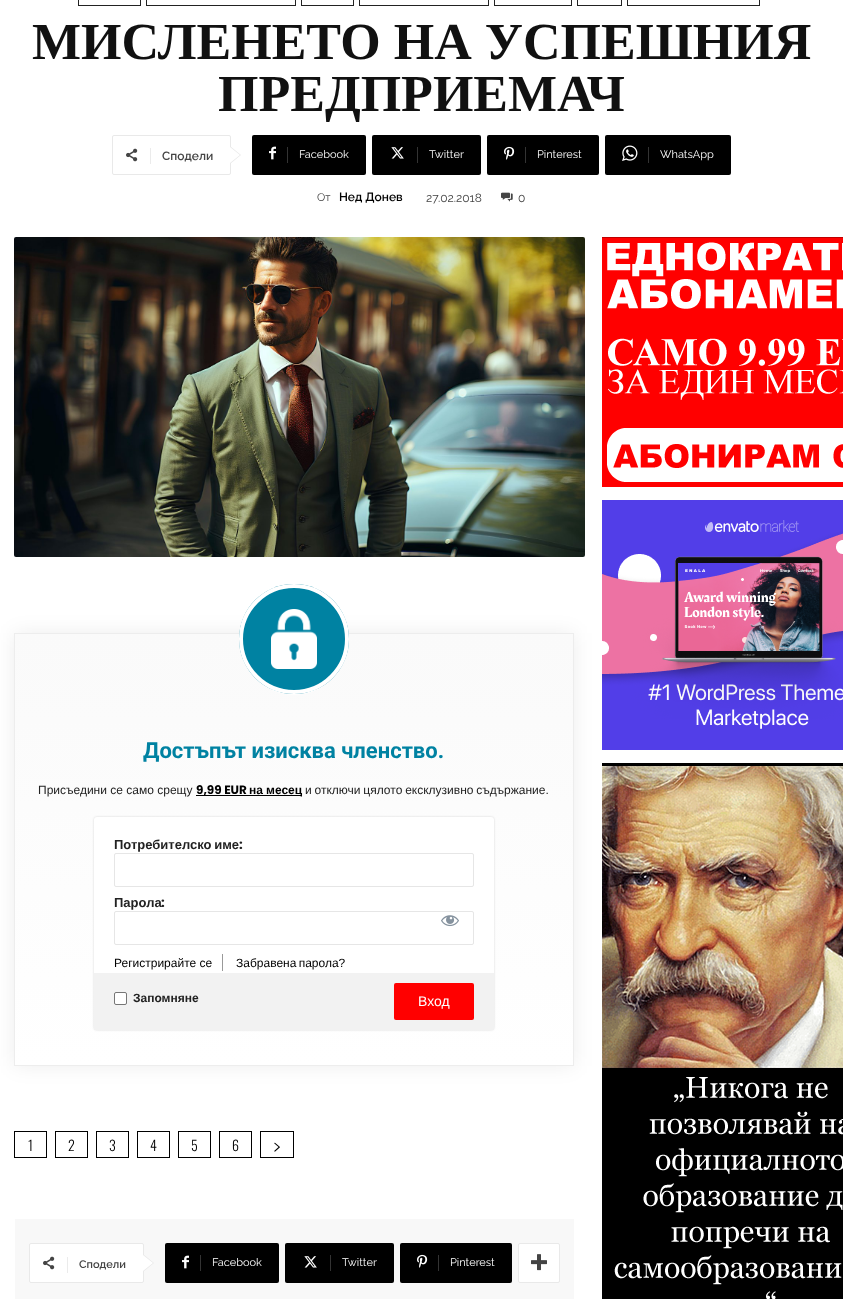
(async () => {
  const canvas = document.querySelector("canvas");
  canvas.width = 843;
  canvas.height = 1299;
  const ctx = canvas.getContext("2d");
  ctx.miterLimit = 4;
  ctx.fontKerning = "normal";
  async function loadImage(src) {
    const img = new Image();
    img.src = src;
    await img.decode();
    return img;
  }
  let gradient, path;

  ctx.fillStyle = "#ffffff";
  ctx.fillRect(0, 0, 843, 1299);
  ctx.strokeStyle = "#222222";
  ctx.strokeRect(78.5, -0.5, 62, 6);
  ctx.strokeRect(146.5, -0.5, 149, 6);
  ctx.strokeRect(301.5, -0.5, 52, 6);
  ctx.strokeRect(359.5, -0.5, 129, 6);
  ctx.strokeRect(494.5, -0.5, 77, 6);
  ctx.strokeRect(577.5, -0.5, 44, 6);
  ctx.strokeRect(627.5, -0.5, 132, 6);
  ctx.beginPath();
  ctx.roundRect(112.5, 135.5, 118, 39, 1.5);
  ctx.strokeStyle = "#e9e9e9";
  ctx.stroke();
  ctx.fillStyle = "#e9e9e9";
  path = new Path2D("M230 164V146L241 155Z");
  ctx.fill(path);
  ctx.drawImage(await loadImage("img/1.png"), 126, 148, 12, 14);
  ctx.fillStyle = "#ebebeb";
  ctx.fillRect(150, 148, 1, 16);
  ctx.fillStyle = "#ffffff";
  path = new Path2D("M230 163V147L240 155Z");
  ctx.fill(path);
  ctx.fillStyle = "#000000";
  ctx.beginPath();
  ctx.roundRect(287, 135, 79, 40, [0, 2, 2, 0]);
  ctx.fill();
  ctx.beginPath();
  ctx.roundRect(252, 135, 41, 40, [2, 0, 0, 2]);
  ctx.fill();
  ctx.drawImage(await loadImage("img/2.png"), 269, 146, 7, 14);
  ctx.fillStyle = "#333333";
  ctx.fillRect(287, 147, 1, 16);
  ctx.fillStyle = "#000000";
  ctx.beginPath();
  ctx.roundRect(417, 135, 64, 40, [0, 2, 2, 0]);
  ctx.fill();
  ctx.beginPath();
  ctx.roundRect(372, 135, 51, 40, [2, 0, 0, 2]);
  ctx.fill();
  ctx.drawImage(await loadImage("img/3.png"), 391, 147, 13, 12);
  ctx.fillStyle = "#333333";
  ctx.fillRect(417, 147, 1, 16);
  ctx.fillStyle = "#000000";
  ctx.beginPath();
  ctx.roundRect(525, 135, 74, 40, [0, 2, 2, 0]);
  ctx.fill();
  ctx.beginPath();
  ctx.roundRect(487, 135, 44, 40, [2, 0, 0, 2]);
  ctx.fill();
  ctx.drawImage(await loadImage("img/4.png"), 504, 146, 11, 14);
  ctx.fillStyle = "#333333";
  ctx.fillRect(525, 147, 1, 16);
  ctx.fillStyle = "#000000";
  ctx.beginPath();
  ctx.roundRect(648, 135, 83, 40, [0, 2, 2, 0]);
  ctx.fill();
  ctx.beginPath();
  ctx.roundRect(605, 135, 49, 40, [2, 0, 0, 2]);
  ctx.fill();
  ctx.drawImage(await loadImage("img/5.png"), 622, 145, 16, 16);
  ctx.fillStyle = "#333333";
  ctx.fillRect(648, 147, 1, 16);
  ctx.drawImage(await loadImage("img/6.png"), 501, 192, 12, 10);
  ctx.drawImage(await loadImage("img/7.png"), 14, 237, 571, 320);
  ctx.fillStyle = "rgba(0, 0, 0, 0.07)";
  ctx.filter = "blur(10px)";
  ctx.beginPath();
  ctx.rect(14, 633, 560, 433);
  ctx.fill();
  ctx.filter = "none";
  gradient = ctx.createLinearGradient(294, 634, 294, 1065);
  gradient.addColorStop(0, "#fafafa");
  gradient.addColorStop(1, "#ffffff");
  ctx.fillStyle = gradient;
  ctx.fillRect(15, 634, 558, 431);
  ctx.strokeStyle = "#ededed";
  ctx.strokeRect(14.5, 633.5, 559, 432);
  ctx.fillStyle = "rgba(255, 255, 255, 0.7)";
  ctx.filter = "blur(0.5px)";
  ctx.beginPath();
  ctx.roundRect(239, 585, 110, 110, 55);
  ctx.fill();
  ctx.filter = "none";
  ctx.fillStyle = "#0082a2";
  ctx.beginPath();
  ctx.arc(294, 639, 55, 0, Math.PI * 2);
  ctx.fill();
  ctx.drawImage(await loadImage("img/8.png"), 271, 609, 46, 60);
  ctx.beginPath();
  ctx.arc(294, 639, 53, 0, Math.PI * 2);
  ctx.strokeStyle = "#ffffff";
  ctx.lineWidth = 4;
  ctx.stroke();
  ctx.fillStyle = "#000000";
  ctx.fillRect(196, 795, 106, 1);
  ctx.fillStyle = "rgba(0, 0, 0, 0.15)";
  ctx.filter = "blur(1px)";
  ctx.beginPath();
  ctx.roundRect(94, 817, 400, 213, 3);
  ctx.fill();
  ctx.filter = "none";
  ctx.fillStyle = "#ffffff";
  ctx.beginPath();
  ctx.roundRect(94, 817, 400, 213, 3);
  ctx.fill();
  ctx.beginPath();
  ctx.roundRect(114.5, 853.5, 359, 33, 1.5);
  ctx.strokeStyle = "#e6e6e6";
  ctx.lineWidth = 1;
  ctx.stroke();
  ctx.beginPath();
  ctx.roundRect(114.5, 911.5, 359, 33, 1.5);
  ctx.stroke();
  ctx.drawImage(await loadImage("img/9.png"), 441, 915, 18, 12);
  ctx.fillStyle = "#999999";
  ctx.fillRect(222, 954, 1, 17);
  ctx.fillStyle = "#f2f2f2";
  ctx.fillRect(94, 973, 400, 57);
  ctx.fillStyle = "#ffffff";
  ctx.beginPath();
  ctx.roundRect(114.5, 992.5, 12, 12, 1.5);
  ctx.fill();
  ctx.strokeStyle = "#767676";
  ctx.stroke();
  ctx.fillStyle = "#ff0000";
  ctx.beginPath();
  ctx.roundRect(394, 983, 80, 37, 2);
  ctx.fill();
  ctx.strokeStyle = "#000000";
  ctx.strokeRect(14.5, 1131.5, 32, 26);
  ctx.strokeRect(55.5, 1131.5, 32, 26);
  ctx.strokeRect(96.5, 1131.5, 32, 26);
  ctx.strokeRect(137.5, 1131.5, 32, 26);
  ctx.strokeRect(178.5, 1131.5, 32, 26);
  ctx.strokeRect(219.5, 1131.5, 32, 26);
  ctx.strokeRect(260.5, 1131.5, 33, 26);
  ctx.drawImage(await loadImage("img/10.png"), 274, 1142, 6, 10);
  ctx.fillStyle = "#f8f8f8";
  ctx.fillRect(15, 1219, 559, 80);
  ctx.fillStyle = "#ffffff";
  ctx.beginPath();
  ctx.roundRect(29.5, 1243.5, 114, 39, 1.5);
  ctx.fill();
  ctx.strokeStyle = "#e9e9e9";
  ctx.stroke();
  ctx.fillStyle = "#e9e9e9";
  path = new Path2D("M143 1272V1254L154 1263Z");
  ctx.fill(path);
  ctx.drawImage(await loadImage("img/1.png"), 43, 1256, 12, 14);
  ctx.fillStyle = "#ebebeb";
  ctx.fillRect(67, 1257, 1, 16);
  ctx.fillStyle = "#ffffff";
  path = new Path2D("M143 1271V1255L153 1263Z");
  ctx.fill(path);
  ctx.fillStyle = "#000000";
  ctx.beginPath();
  ctx.roundRect(200, 1243, 79, 40, [0, 2, 2, 0]);
  ctx.fill();
  ctx.beginPath();
  ctx.roundRect(165, 1243, 41, 40, [2, 0, 0, 2]);
  ctx.fill();
  ctx.drawImage(await loadImage("img/2.png"), 182, 1255, 7, 14);
  ctx.fillStyle = "#333333";
  ctx.fillRect(200, 1255, 1, 16);
  ctx.fillStyle = "#000000";
  ctx.beginPath();
  ctx.roundRect(330, 1243, 64, 40, [0, 2, 2, 0]);
  ctx.fill();
  ctx.beginPath();
  ctx.roundRect(285, 1243, 51, 40, [2, 0, 0, 2]);
  ctx.fill();
  ctx.drawImage(await loadImage("img/3.png"), 304, 1256, 13, 12);
  ctx.fillStyle = "#333333";
  ctx.fillRect(330, 1255, 1, 16);
  ctx.fillStyle = "#000000";
  ctx.beginPath();
  ctx.roundRect(438, 1243, 74, 40, [0, 2, 2, 0]);
  ctx.fill();
  ctx.beginPath();
  ctx.roundRect(400, 1243, 44, 40, [2, 0, 0, 2]);
  ctx.fill();
  ctx.drawImage(await loadImage("img/4.png"), 417, 1254, 11, 14);
  ctx.fillStyle = "#333333";
  ctx.fillRect(438, 1255, 1, 16);
  ctx.fillStyle = "#ffffff";
  ctx.beginPath();
  ctx.roundRect(518.5, 1243.5, 41, 39, 1.5);
  ctx.fill();
  ctx.stroke();
  ctx.drawImage(await loadImage("img/11.png"), 531, 1254, 16, 17);
  ctx.drawImage(await loadImage("img/12.png"), 602, 237, 241, 250);
  ctx.drawImage(await loadImage("img/13.png"), 602, 500, 241, 250);
  ctx.drawImage(await loadImage("img/14.png"), 602, 763, 241, 536);
  ctx.font = "bold 52px Liberation Serif";
  ctx.fillStyle = "#111111";
  ctx.fillText("МИСЛЕНЕТО НА УСПЕШНИЯ", 32, 59);
  ctx.fillText("ПРЕДПРИЕМАЧ", 218, 111);
  ctx.font = "600 12px Raleway";
  ctx.fillStyle = "#444444";
  ctx.fillText("Сподели", 162, 160);
  ctx.font = "11px Raleway";
  ctx.fillStyle = "#ffffff";
  for (const [text, x, y] of [
    ["Facebook", 299, 158],
    ["Twitter", 429, 158],
    ["Pinterest", 537, 158],
    ["WhatsApp", 660, 158],
  ]) {
    ctx.fillText(text, x, y);
  }
  ctx.fillStyle = "#444444";
  ctx.fillText("От", 317, 201);
  ctx.font = "600 12px Raleway";
  ctx.fillStyle = "#000000";
  ctx.fillText("Нед Донев", 339, 201);
  ctx.font = "12px Raleway";
  ctx.fillStyle = "#444444";
  ctx.fillText("27.02.2018", 426, 202);
  ctx.fillText("0", 518, 202);
  ctx.font = "bold 22px Roboto";
  ctx.fillStyle = "#0082a2";
  ctx.fillText("Достъпът изисква членство.", 143, 758);
  ctx.font = "12px Liberation Sans";
  ctx.fillStyle = "#222222";
  ctx.fillText("Присъедини се само срещу", 38, 794);
  ctx.font = "bold 12px Poppins";
  ctx.fillStyle = "#000000";
  ctx.fillText("9,99 EUR", 196, 794);
  ctx.font = "bold 12px Liberation Sans";
  ctx.fillText("на", 249, 794);
  ctx.fillText("месец", 266, 794);
  ctx.wordSpacing = "-0.5px";
  ctx.font = "12px Liberation Sans";
  ctx.fillStyle = "#222222";
  ctx.fillText("и отключи цялото ексклузивно съдържание.", 305, 794);
  ctx.wordSpacing = "-1px";
  ctx.font = "bold 13px Liberation Sans";
  ctx.fillText("Потребителско име", 114, 849);
  ctx.wordSpacing = "0px";
  ctx.font = "bold 13px Poppins";
  ctx.fillText(":", 239, 849);
  ctx.font = "bold 13px Liberation Sans";
  ctx.fillText("Парола", 114, 907);
  ctx.font = "bold 13px Poppins";
  ctx.fillText(":", 161, 907);
  ctx.font = "12px Liberation Sans";
  ctx.fillStyle = "#000000";
  ctx.fillText("Регистрирайте се", 114, 967);
  ctx.wordSpacing = "-1px";
  ctx.fillText("Забравена парола?", 236, 967);
  ctx.wordSpacing = "0px";
  ctx.font = "bold 12px Liberation Sans";
  ctx.fillStyle = "#222222";
  ctx.fillText("Запомняне", 133, 1002);
  ctx.font = "14px Liberation Sans";
  ctx.fillStyle = "#ffffff";
  ctx.fillText("Вход", 418, 1006);
  ctx.font = "300 14px Oswald";
  ctx.fillStyle = "#000000";
  for (const [text, x, y] of [
    ["1", 28, 1151],
    ["2", 68, 1151],
    ["3", 109, 1151],
    ["4", 150, 1151],
    ["5", 191, 1151],
    ["6", 232, 1151],
  ]) {
    ctx.fillText(text, x, y);
  }
  ctx.font = "600 11px Raleway";
  ctx.fillStyle = "#444444";
  ctx.fillText("Сподели", 79, 1268);
  ctx.font = "11px Raleway";
  ctx.fillStyle = "#ffffff";
  for (const [text, x, y] of [
    ["Facebook", 212, 1266],
    ["Twitter", 342, 1266],
    ["Pinterest", 450, 1266],
  ]) {
    ctx.fillText(text, x, y);
  }
})();
